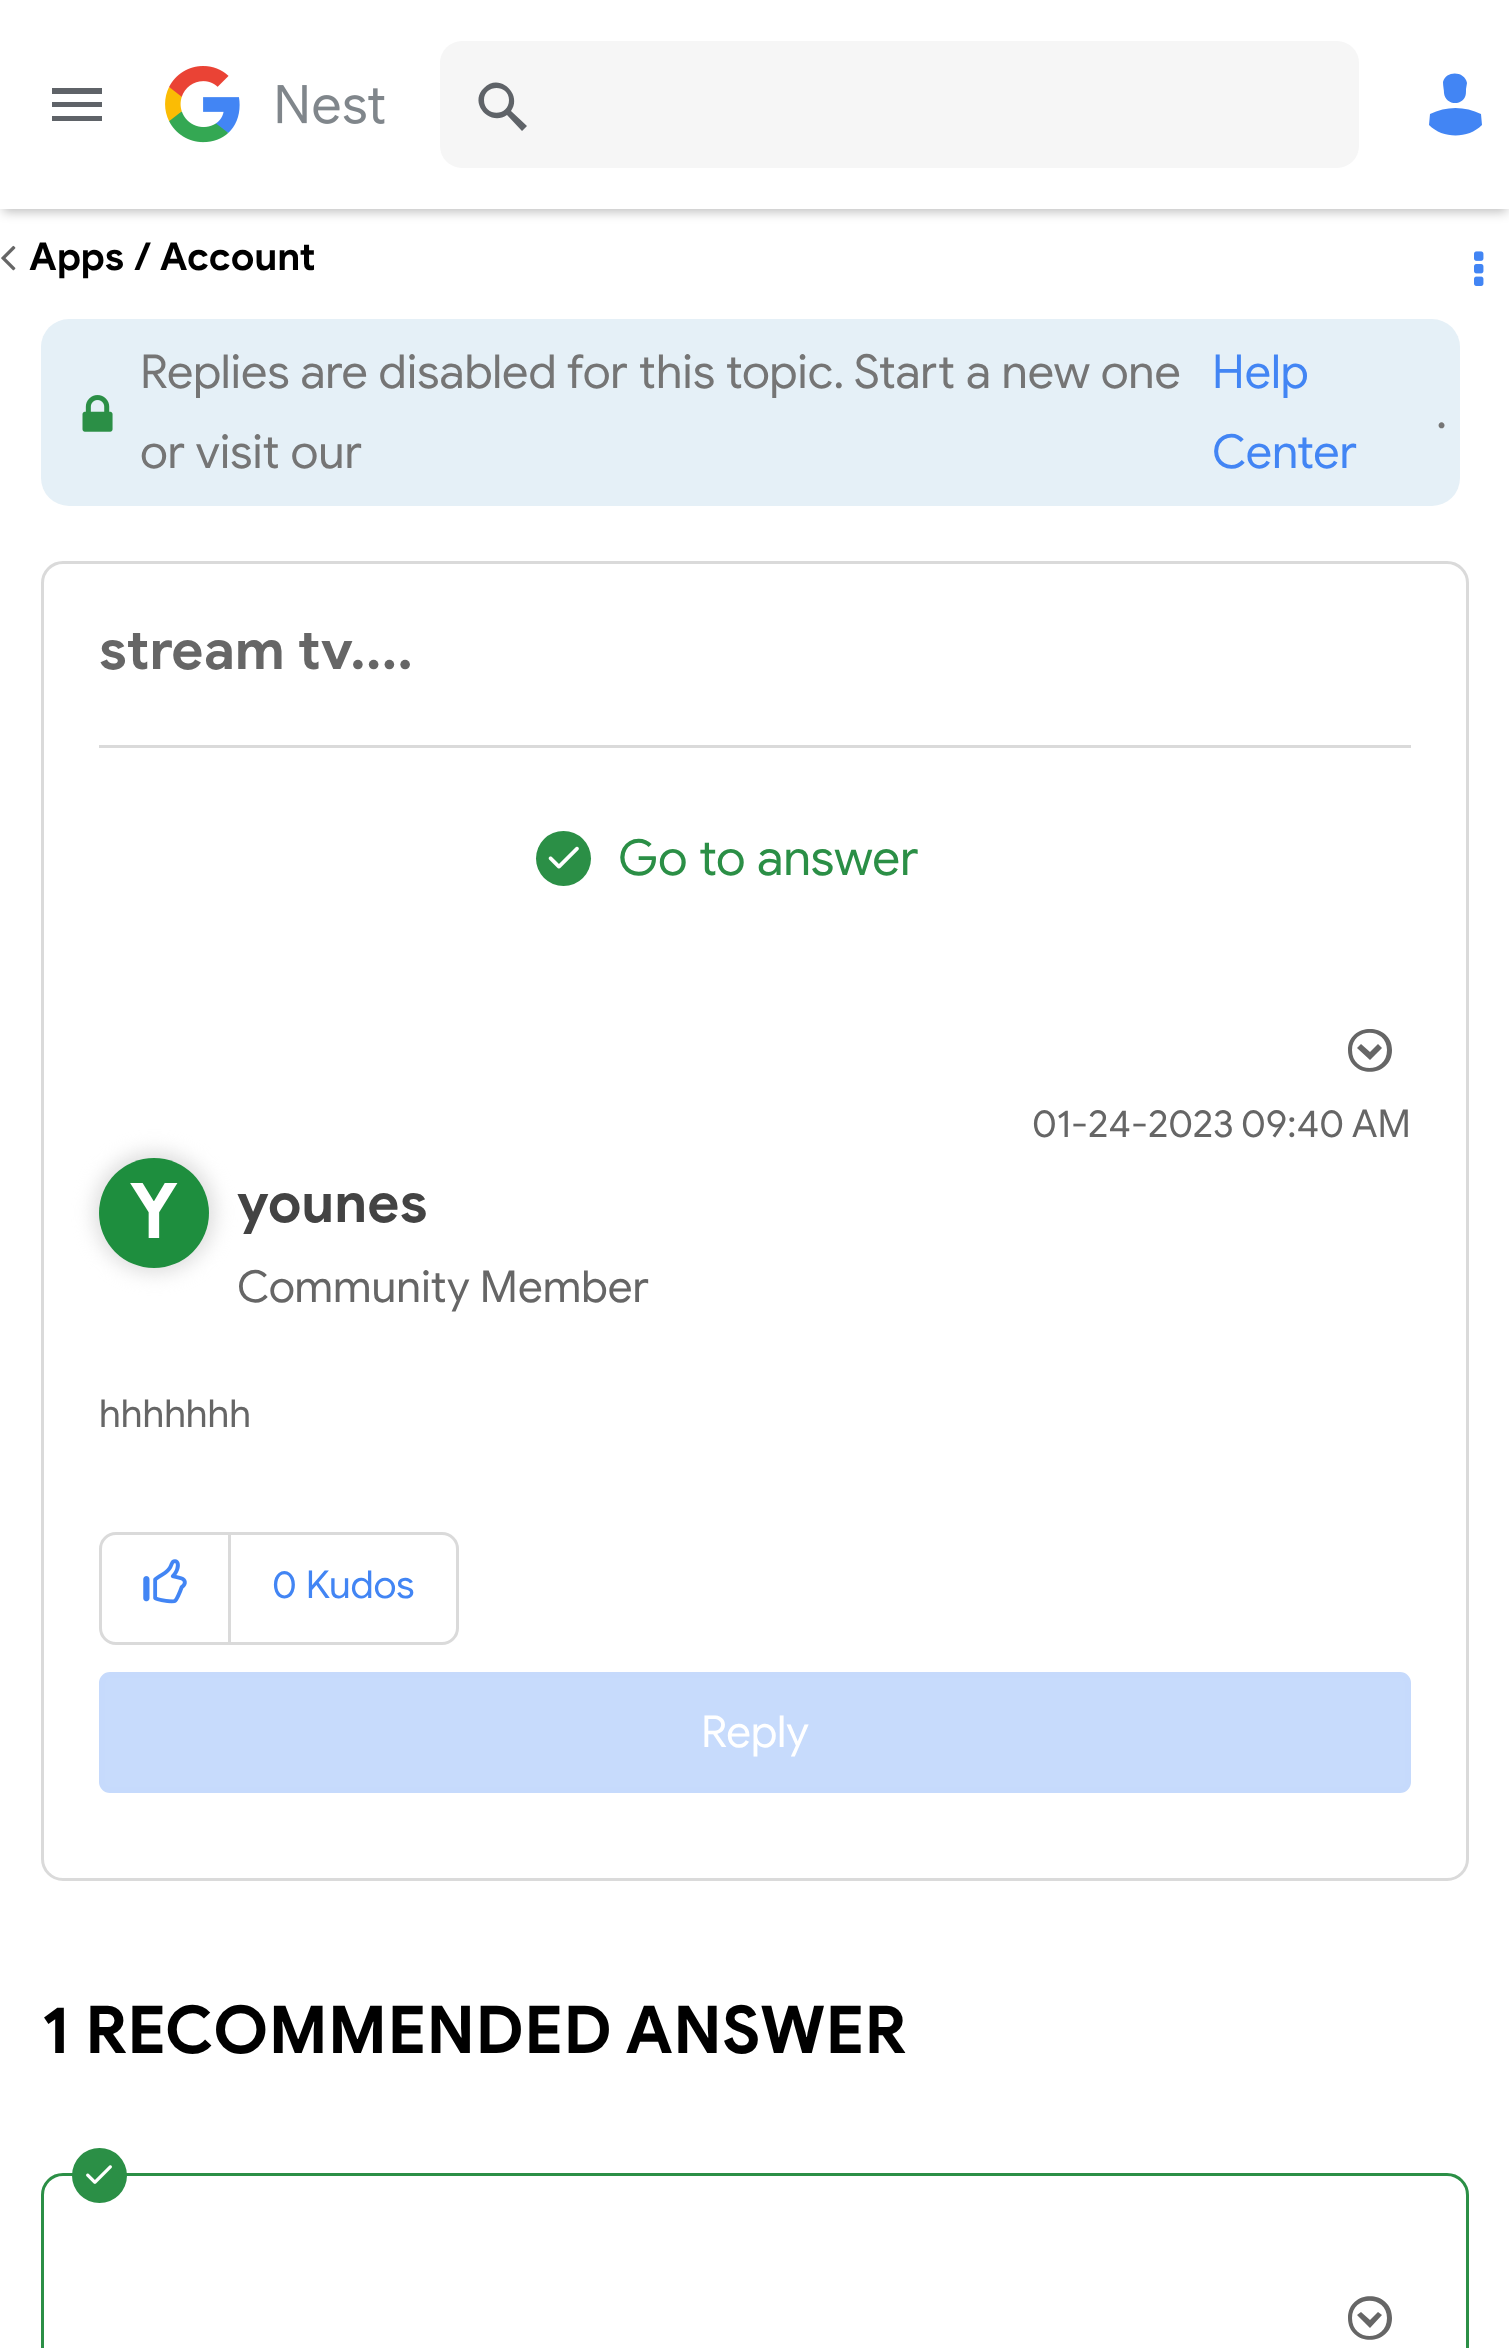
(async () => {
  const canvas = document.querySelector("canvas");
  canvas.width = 1509;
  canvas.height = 2348;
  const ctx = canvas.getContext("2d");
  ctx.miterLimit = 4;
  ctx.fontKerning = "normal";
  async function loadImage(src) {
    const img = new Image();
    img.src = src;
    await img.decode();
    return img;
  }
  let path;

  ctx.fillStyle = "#ffffff";
  ctx.fillRect(0, 0, 1509, 2348);
  ctx.fillStyle = "rgba(0, 0, 0, 0.25)";
  ctx.filter = "blur(5.5px)";
  ctx.beginPath();
  ctx.rect(3, 8, 1504, 204);
  ctx.fill();
  ctx.filter = "none";
  ctx.fillStyle = "#ffffff";
  ctx.fillRect(0, 0, 1509, 209);
  ctx.fillStyle = "#5f6368";
  path = new Path2D("M52 121H102V116H52ZM52 107H102V102H52ZM52 88V94H102V88Z");
  ctx.fill(path);
  ctx.drawImage(await loadImage("img/1.png"), 165, 66, 220, 77);
  ctx.fillStyle = "#f6f6f6";
  ctx.beginPath();
  ctx.roundRect(440, 41, 919, 127, 22);
  ctx.fill();
  ctx.fillStyle = "#5f6368";
  path = new Path2D("M527 126L511 111C523 94 499 72 484 88C468 103 490 127 507 115L522 131ZM484 100C484 84 509 84 509 100C509 117 484 117 484 100Z");
  ctx.fill(path);
  ctx.fillStyle = "#4285f4";
  path = new Path2D("M1482 125C1468 139 1443 139 1429 125L1430 114C1446 106 1465 106 1481 114ZM1444 93C1444 90 1443 86 1443 82C1446 70 1465 71 1467 83L1466 89C1466 92 1466 95 1465 97C1460 107 1445 104 1444 93Z");
  ctx.fill(path);
  ctx.drawImage(await loadImage("img/2.png"), 1, 245, 15, 26);
  ctx.drawImage(await loadImage("img/3.png"), 1474, 251, 10, 35);
  ctx.fillStyle = "#e5f0f7";
  ctx.beginPath();
  ctx.roundRect(41, 319, 1419, 187, 28);
  ctx.fill();
  ctx.drawImage(await loadImage("img/4.png"), 82, 395, 31, 37);
  ctx.beginPath();
  ctx.roundRect(42.5, 562.5, 1425, 1317, 20.5);
  ctx.strokeStyle = "#dadada";
  ctx.lineWidth = 3;
  ctx.stroke();
  ctx.fillStyle = "#dadada";
  ctx.fillRect(99, 745, 1312, 3);
  ctx.fillStyle = "#2b8f46";
  ctx.beginPath();
  ctx.arc(563.5, 858.5, 27.5, 0, Math.PI * 2);
  ctx.fill();
  ctx.drawImage(await loadImage("img/5.png"), 548, 846, 31, 23);
  ctx.fillStyle = "#666666";
  path = new Path2D("M1392 1050C1392 1022 1348 1022 1348 1050C1348 1079 1392 1079 1392 1050ZM1352 1050C1352 1027 1387 1027 1387 1050C1387 1074 1352 1074 1352 1050ZM1361 1044L1357 1048L1370 1060L1382 1048L1378 1044L1370 1052Z");
  ctx.fill(path);
  ctx.fillStyle = "#dddddd";
  ctx.filter = "blur(9.5px)";
  ctx.beginPath();
  ctx.roundRect(94, 1152, 121, 121, 60.5);
  ctx.fill();
  ctx.filter = "none";
  ctx.fillStyle = "#1e8e3e";
  ctx.beginPath();
  ctx.arc(154, 1213, 55, 0, Math.PI * 2);
  ctx.fill();
  ctx.beginPath();
  ctx.roundRect(100.5, 1533.5, 357, 110, 15.5);
  ctx.stroke();
  ctx.fillStyle = "#dadada";
  ctx.fillRect(228, 1535, 3, 107);
  ctx.drawImage(await loadImage("img/6.png"), 143, 1559, 44, 45);
  ctx.fillStyle = "#c7dbfc";
  ctx.beginPath();
  ctx.roundRect(102, 1675, 1306, 115, 8);
  ctx.fill();
  ctx.strokeStyle = "#c6dafc";
  ctx.lineWidth = 6;
  ctx.stroke();
  ctx.beginPath();
  ctx.roundRect(42.5, 2174.5, 1425, 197, 20.5);
  ctx.strokeStyle = "#2b8f46";
  ctx.lineWidth = 3;
  ctx.stroke();
  ctx.fillStyle = "#2b8f46";
  ctx.beginPath();
  ctx.arc(99.5, 2175.5, 27.5, 0, Math.PI * 2);
  ctx.fill();
  ctx.drawImage(await loadImage("img/7.png"), 86, 2165, 26, 19);
  ctx.fillStyle = "#666666";
  path = new Path2D("M1392 2318C1392 2289 1348 2289 1348 2318C1348 2347 1392 2347 1392 2318ZM1352 2318C1352 2295 1387 2295 1387 2318C1387 2342 1352 2342 1352 2318ZM1361 2312L1357 2315L1370 2328L1382 2315L1378 2312L1370 2320Z");
  ctx.fill(path);
  ctx.font = "bold 38.5px Google Sans";
  ctx.fillStyle = "#000000";
  ctx.fillText("Apps / Account", 29, 270);
  ctx.font = "46.75px Google Sans";
  ctx.fillStyle = "#757575";
  ctx.fillText("Replies are disabled for this topic. Start a new one", 140, 388);
  ctx.fillStyle = "#4285f4";
  ctx.fillText("Help", 1212, 388);
  ctx.fillText("Center", 1212, 468);
  ctx.fillStyle = "#757575";
  ctx.fillText(".", 1436, 428);
  ctx.fillText("or visit our", 140, 468);
  ctx.font = "bold 55px Google Sans";
  ctx.fillStyle = "#666666";
  ctx.fillText("stream tv....", 99, 669);
  ctx.font = "49.5px Google Sans";
  ctx.fillStyle = "#2b8f46";
  ctx.fillText("Go to answer", 618, 875);
  ctx.font = "38.5px Google Sans";
  ctx.fillStyle = "#666666";
  ctx.fillText("01-24-2023", 1032, 1137);
  ctx.fillText("09:40 AM", 1241, 1137);
  ctx.font = "bold 77px Google Sans";
  ctx.fillStyle = "#ffffff";
  ctx.fillText("Y", 129, 1238);
  ctx.font = "bold 55px Google Sans";
  ctx.fillStyle = "#434343";
  ctx.fillText("younes", 237, 1222);
  ctx.font = "44px Google Sans";
  ctx.fillStyle = "#666666";
  ctx.fillText("Community Member", 237, 1302);
  ctx.font = "38.5px Google Sans";
  ctx.fillText("hhhhhhh", 99, 1427);
  ctx.fillStyle = "#4285f4";
  ctx.fillText("0 Kudos", 272, 1598);
  ctx.font = "44px Google Sans";
  ctx.fillStyle = "#ffffff";
  ctx.fillText("Reply", 701, 1747);
  ctx.font = "bold 66px Google Sans";
  ctx.fillStyle = "#000000";
  ctx.fillText("1 RECOMMENDED ANSWER", 41, 2053);
})();
